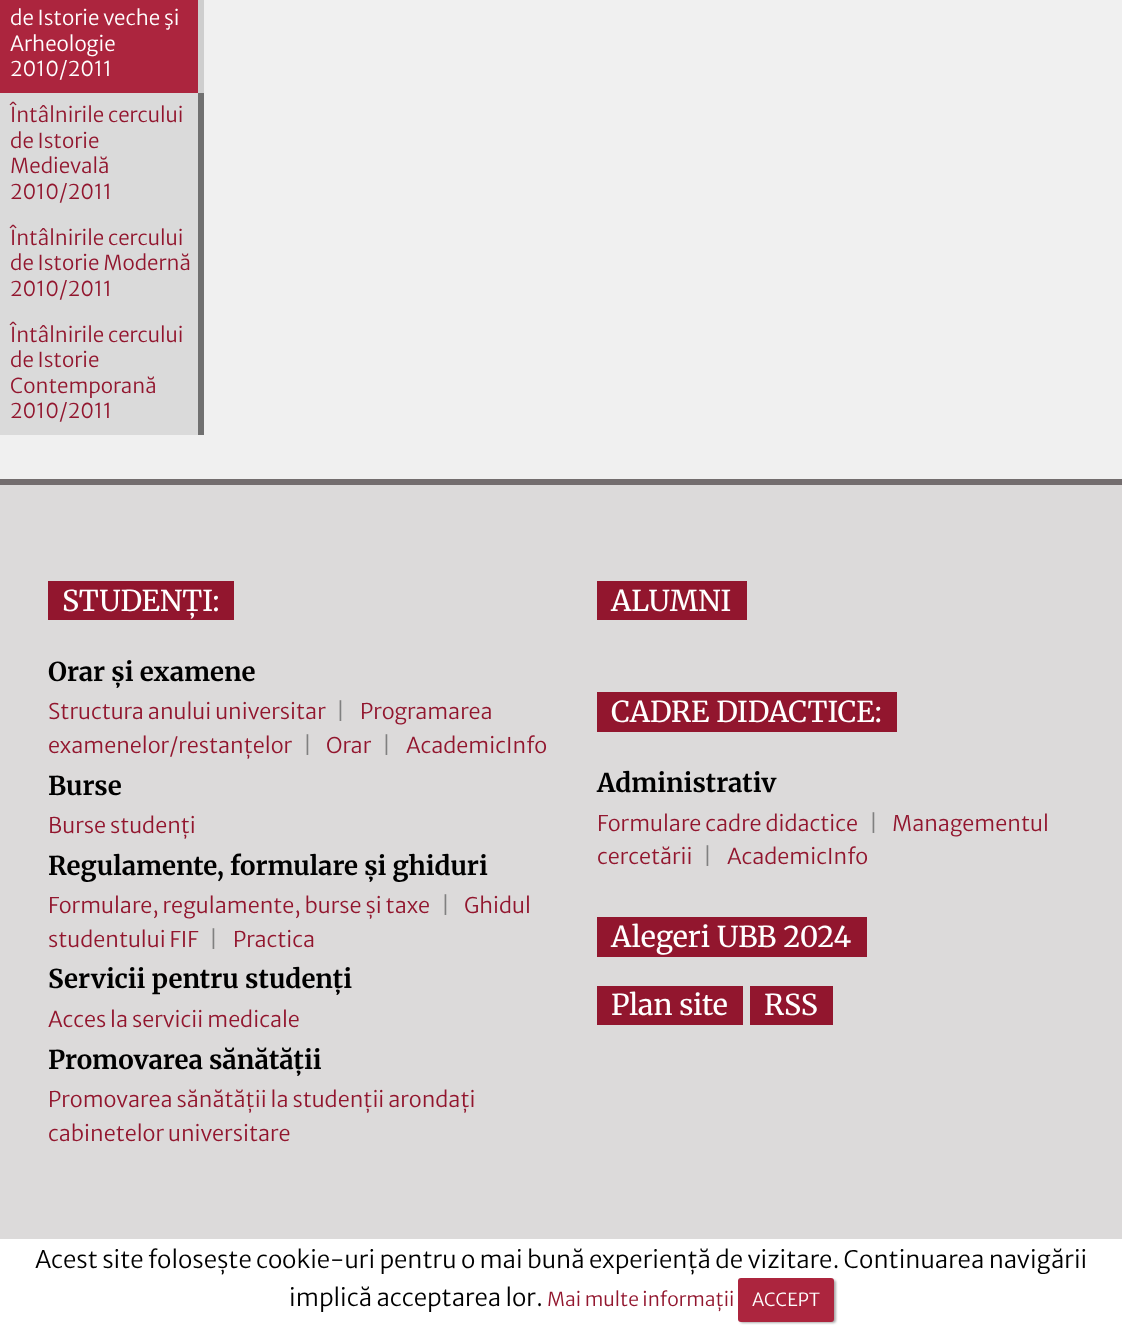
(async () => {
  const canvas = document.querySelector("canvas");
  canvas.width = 1122;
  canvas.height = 1325;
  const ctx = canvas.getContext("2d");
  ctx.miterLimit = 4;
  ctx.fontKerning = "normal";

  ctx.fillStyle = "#f0f0f0";
  ctx.fillRect(0, 0, 1122, 1325);
  for (const [x, y, w, h, color] of [
    [0, 0, 198, 93, "#ac253e"],
    [198, 0, 6, 93, "#cecece"],
    [0, 93, 198, 342, "#dadada"],
    [198, 93, 6, 342, "#707070"],
    [0, 485, 1122, 754, "#dcdada"],
    [0, 479, 1122, 6, "#736d6e"],
    [48, 581, 186, 39, "#92162e"],
    [597, 581, 150, 39, "#92162e"],
    [597, 692, 300, 40, "#92162e"],
    [597, 917, 270, 40, "#92162e"],
    [597, 986, 146, 39, "#92162e"],
    [750, 986, 83, 39, "#92162e"],
    [0, 1239, 1122, 86, "#ffffff"],
  ]) {
    ctx.fillStyle = color;
    ctx.fillRect(x, y, w, h);
  }
  ctx.fillStyle = "#aaaaaa";
  ctx.filter = "blur(1px)";
  ctx.beginPath();
  ctx.roundRect(740, 1280, 96, 43, 3);
  ctx.fill();
  ctx.filter = "none";
  ctx.fillStyle = "#ac253e";
  ctx.beginPath();
  ctx.roundRect(738, 1278, 96, 44, 3);
  ctx.fill();
  ctx.font = "300 20.5px Merriweather Sans";
  ctx.fillStyle = "#ffffff";
  for (const [text, x, y] of [
    ["de Istorie veche şi", 10, 25],
    ["Arheologie", 10, 51],
    ["2010/2011", 10, 76],
  ]) {
    ctx.fillText(text, x, y);
  }
  ctx.fillStyle = "#92162e";
  for (const [text, x, y] of [
    ["Întâlnirile cercului", 10, 122],
    ["de Istorie", 10, 148],
    ["Medievală", 10, 173],
    ["2010/2011", 10, 199],
    ["Întâlnirile cercului", 10, 245],
    ["de Istorie Modernă", 10, 270],
    ["2010/2011", 10, 296],
    ["Întâlnirile cercului", 10, 342],
    ["de Istorie", 10, 367],
    ["Contemporană", 10, 393],
    ["2010/2011", 10, 418],
  ]) {
    ctx.fillText(text, x, y);
  }
  ctx.font = "28.75px Merriweather";
  ctx.fillStyle = "#ffffff";
  ctx.fillText("STUDENȚI:", 62, 611);
  ctx.font = "bold 25.9px Merriweather";
  ctx.fillStyle = "#000000";
  ctx.fillText("Orar și examene", 48, 681);
  ctx.font = "300 21.6px Merriweather Sans";
  ctx.fillStyle = "#92162e";
  ctx.fillText("Structura anului universitar", 48, 719);
  ctx.fillStyle = "#808080";
  ctx.fillText("|", 336, 719);
  ctx.fillStyle = "#92162e";
  ctx.fillText("Programarea", 360, 719);
  ctx.fillText("examenelor/restanțelor", 48, 753);
  ctx.fillStyle = "#808080";
  ctx.fillText("|", 303, 753);
  ctx.fillStyle = "#92162e";
  ctx.fillText("Orar", 326, 753);
  ctx.fillStyle = "#808080";
  ctx.fillText("|", 382, 753);
  ctx.fillStyle = "#92162e";
  ctx.fillText("AcademicInfo", 406, 753);
  ctx.font = "bold 25.9px Merriweather";
  ctx.fillStyle = "#000000";
  ctx.fillText("Burse", 48, 795);
  ctx.font = "300 21.6px Merriweather Sans";
  ctx.fillStyle = "#92162e";
  ctx.fillText("Burse studenți", 48, 833);
  ctx.font = "bold 25.9px Merriweather";
  ctx.fillStyle = "#000000";
  ctx.fillText("Regulamente, formulare și ghiduri", 48, 875);
  ctx.font = "300 21.6px Merriweather Sans";
  ctx.fillStyle = "#92162e";
  ctx.fillText("Formulare, regulamente, burse și taxe", 48, 913);
  ctx.fillStyle = "#808080";
  ctx.fillText("|", 441, 913);
  ctx.fillStyle = "#92162e";
  ctx.fillText("Ghidul", 464, 913);
  ctx.fillText("studentului FIF", 48, 947);
  ctx.fillStyle = "#808080";
  ctx.fillText("|", 209, 947);
  ctx.fillStyle = "#92162e";
  ctx.fillText("Practica", 233, 947);
  ctx.font = "bold 25.9px Merriweather";
  ctx.fillStyle = "#000000";
  ctx.fillText("Servicii pentru studenți", 48, 988);
  ctx.font = "300 21.6px Merriweather Sans";
  ctx.fillStyle = "#92162e";
  ctx.fillText("Acces la servicii medicale", 48, 1027);
  ctx.font = "bold 25.9px Merriweather";
  ctx.fillStyle = "#000000";
  ctx.fillText("Promovarea sănătății", 48, 1069);
  ctx.font = "300 21.6px Merriweather Sans";
  ctx.fillStyle = "#92162e";
  ctx.fillText("Promovarea sănătății la studenții arondați", 48, 1107);
  ctx.fillText("cabinetelor universitare", 48, 1141);
  ctx.font = "28.75px Merriweather";
  ctx.fillStyle = "#ffffff";
  ctx.fillText("ALUMNI", 611, 611);
  ctx.fillText("CADRE DIDACTICE:", 611, 722);
  ctx.font = "bold 25.9px Merriweather";
  ctx.fillStyle = "#000000";
  ctx.fillText("Administrativ", 597, 792);
  ctx.font = "300 21.6px Merriweather Sans";
  ctx.fillStyle = "#92162e";
  ctx.fillText("Formulare cadre didactice", 597, 831);
  ctx.fillStyle = "#808080";
  ctx.fillText("|", 869, 831);
  ctx.fillStyle = "#92162e";
  ctx.fillText("Managementul", 892, 831);
  ctx.fillText("cercetării", 597, 864);
  ctx.fillStyle = "#808080";
  ctx.fillText("|", 703, 864);
  ctx.fillStyle = "#92162e";
  ctx.fillText("AcademicInfo", 727, 864);
  ctx.font = "28.75px Merriweather";
  ctx.fillStyle = "#ffffff";
  for (const [text, x, y] of [
    ["Alegeri UBB 2024", 611, 947],
    ["Plan site", 611, 1015],
    ["RSS", 764, 1015],
  ]) {
    ctx.fillText(text, x, y);
  }
  ctx.font = "300 24px Merriweather Sans";
  ctx.fillStyle = "#000000";
  ctx.fillText("Acest site folosește cookie-uri pentru o mai bună experiență de vizitare. Continuarea navigării", 35, 1268);
  ctx.fillText("implică acceptarea lor.", 289, 1306);
  ctx.font = "300 19.25px Merriweather Sans";
  ctx.fillStyle = "#92162e";
  ctx.fillText("Mai multe informații", 547, 1306);
  ctx.font = "300 18px Merriweather Sans";
  ctx.fillStyle = "#ffffff";
  ctx.fillText("ACCEPT", 752, 1306);
})();
